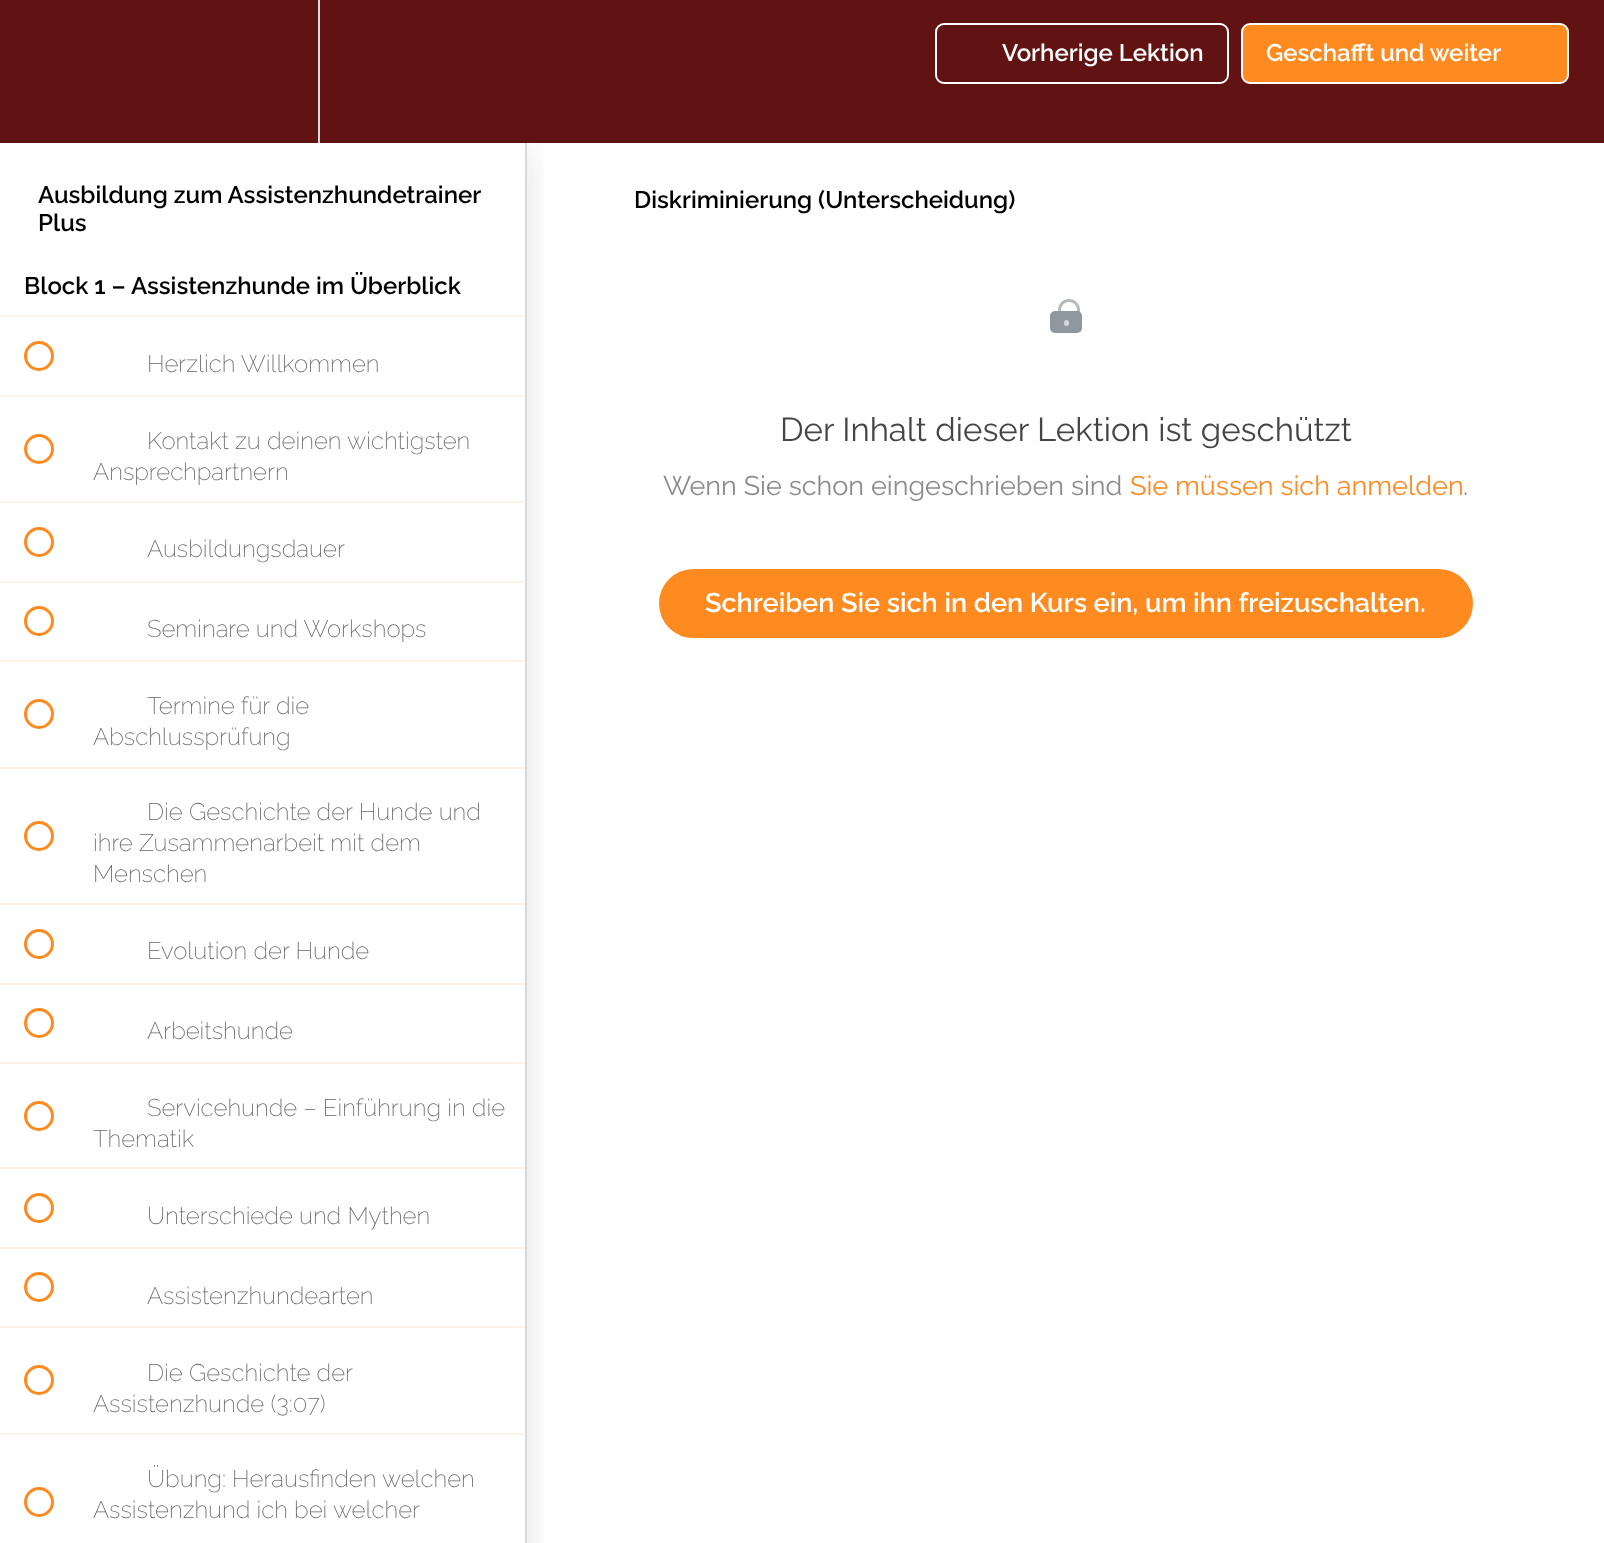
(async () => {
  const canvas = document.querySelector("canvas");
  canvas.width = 1604;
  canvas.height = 1543;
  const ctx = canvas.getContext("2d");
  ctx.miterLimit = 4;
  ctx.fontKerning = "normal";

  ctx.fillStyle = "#ffffff";
  ctx.fillRect(0, 0, 1604, 1543);
  ctx.save();
  ctx.beginPath();
  ctx.rect(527, 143, 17, 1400);
  ctx.clip();
  ctx.fillStyle = "rgba(32, 39, 45, 0.15)";
  ctx.filter = "blur(15px)";
  ctx.beginPath();
  ctx.rect(0, 152, 527, 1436);
  ctx.fill();
  ctx.filter = "none";
  ctx.restore();
  ctx.fillStyle = "#611313";
  ctx.fillRect(0, 0, 1604, 143);
  ctx.fillStyle = "#d7dadb";
  ctx.fillRect(318, 0, 2, 143);
  ctx.beginPath();
  ctx.roundRect(936, 24, 292, 59, 8);
  ctx.strokeStyle = "#ffffff";
  ctx.lineWidth = 2;
  ctx.stroke();
  ctx.fillStyle = "#ff8b20";
  ctx.beginPath();
  ctx.roundRect(1242, 24, 326, 59, 8);
  ctx.fill();
  ctx.stroke();
  for (const [x, y, w, h, color] of [
    [525, 143, 2, 1400, "#d7dadb"],
    [0, 315, 525, 2, "#fff3e9"],
    [0, 395, 525, 2, "#fff3e9"],
  ]) {
    ctx.fillStyle = color;
    ctx.fillRect(x, y, w, h);
  }
  ctx.beginPath();
  ctx.arc(39, 356, 13.5, 0, Math.PI * 2);
  ctx.strokeStyle = "#ff8b20";
  ctx.lineWidth = 3;
  ctx.stroke();
  ctx.fillRect(0, 501, 525, 2);
  ctx.beginPath();
  ctx.arc(39, 449, 13.5, 0, Math.PI * 2);
  ctx.stroke();
  ctx.fillRect(0, 581, 525, 2);
  ctx.beginPath();
  ctx.arc(39, 542, 13.5, 0, Math.PI * 2);
  ctx.stroke();
  ctx.fillRect(0, 660, 525, 2);
  ctx.beginPath();
  ctx.arc(39, 621, 13.5, 0, Math.PI * 2);
  ctx.stroke();
  ctx.fillRect(0, 767, 525, 2);
  ctx.beginPath();
  ctx.arc(39, 714, 13.5, 0, Math.PI * 2);
  ctx.stroke();
  ctx.fillRect(0, 903, 525, 2);
  ctx.beginPath();
  ctx.arc(39, 836, 13.5, 0, Math.PI * 2);
  ctx.stroke();
  ctx.fillRect(0, 983, 525, 2);
  ctx.beginPath();
  ctx.arc(39, 944, 13.5, 0, Math.PI * 2);
  ctx.stroke();
  ctx.fillRect(0, 1062, 525, 2);
  ctx.beginPath();
  ctx.arc(39, 1023, 13.5, 0, Math.PI * 2);
  ctx.stroke();
  ctx.fillRect(0, 1167, 525, 2);
  ctx.beginPath();
  ctx.arc(39, 1116, 13.5, 0, Math.PI * 2);
  ctx.stroke();
  ctx.fillRect(0, 1247, 525, 2);
  ctx.beginPath();
  ctx.arc(39, 1208, 13.5, 0, Math.PI * 2);
  ctx.stroke();
  ctx.fillRect(0, 1326, 525, 2);
  ctx.beginPath();
  ctx.arc(39, 1287, 13.5, 0, Math.PI * 2);
  ctx.stroke();
  ctx.fillRect(0, 1433, 525, 2);
  ctx.beginPath();
  ctx.arc(39, 1380, 13.5, 0, Math.PI * 2);
  ctx.stroke();
  ctx.beginPath();
  ctx.arc(39, 1502, 13.5, 0, Math.PI * 2);
  ctx.stroke();
  ctx.beginPath();
  ctx.roundRect(1059.5, 300.5, 19, 30, 9.5);
  ctx.strokeStyle = "#b5babf";
  ctx.stroke();
  ctx.fillStyle = "#8f989f";
  ctx.beginPath();
  ctx.roundRect(1050, 311, 32, 22, 5);
  ctx.fill();
  ctx.fillStyle = "#d3d7dc";
  ctx.beginPath();
  ctx.roundRect(1064, 320, 5, 6, 2.5);
  ctx.fill();
  ctx.fillStyle = "#ff8b20";
  ctx.beginPath();
  ctx.roundRect(660, 570, 812, 67, 33.5);
  ctx.fill();
  ctx.strokeStyle = "#ff8b20";
  ctx.lineWidth = 2;
  ctx.stroke();
  ctx.font = "600 24px Raleway";
  ctx.fillStyle = "#ffffff";
  ctx.fillText("Vorherige Lektion", 1002, 61);
  ctx.fillText("Geschafft und weiter", 1266, 61);
  ctx.fillStyle = "#000000";
  for (const [text, x, y] of [
    ["Ausbildung zum Assistenzhundetrainer", 38, 203],
    ["Plus", 38, 231],
    ["Block 1 – Assistenzhunde im Überblick", 24, 294],
  ]) {
    ctx.fillText(text, x, y);
  }
  ctx.font = "200 24px Raleway";
  ctx.fillStyle = "#676767";
  for (const [text, x, y] of [
    ["Herzlich Willkommen", 147, 372],
    ["Kontakt zu deinen wichtigsten", 147, 449],
    ["Ansprechpartnern", 93, 480],
    ["Ausbildungsdauer", 147, 557],
    ["Seminare und Workshops", 147, 637],
    ["Termine für die", 147, 714],
    ["Abschlussprüfung", 93, 745],
    ["Die Geschichte der Hunde und", 147, 820],
    ["ihre Zusammenarbeit mit dem", 93, 851],
    ["Menschen", 93, 882],
    ["Evolution der Hunde", 147, 959],
    ["Arbeitshunde", 147, 1039],
    ["Servicehunde – Einführung in die", 147, 1116],
    ["Thematik", 93, 1147],
    ["Unterschiede und Mythen", 147, 1224],
    ["Assistenzhundearten", 147, 1304],
    ["Die Geschichte der", 147, 1381],
    ["Assistenzhunde (3:07)", 93, 1412],
    ["Übung: Herausfinden welchen", 147, 1487],
    ["Assistenzhund ich bei welcher", 93, 1518],
  ]) {
    ctx.fillText(text, x, y);
  }
  ctx.font = "600 24px Raleway";
  ctx.fillStyle = "#000000";
  ctx.fillText("Diskriminierung (Unterscheidung)", 634, 208);
  ctx.font = "33px Raleway";
  ctx.fillStyle = "#454545";
  ctx.fillText("Der Inhalt dieser Lektion ist geschützt", 780, 441);
  ctx.font = "27px Raleway";
  ctx.fillStyle = "#8b8b8b";
  ctx.fillText("Wenn Sie schon eingeschrieben sind", 663, 495);
  ctx.fillStyle = "#ff8b20";
  ctx.fillText("Sie müssen sich anmelden", 1130, 495);
  ctx.fillStyle = "#8b8b8b";
  ctx.fillText(".", 1463, 495);
  ctx.font = "600 27px Raleway";
  ctx.fillStyle = "#ffffff";
  ctx.fillText("Schreiben Sie sich in den Kurs ein, um ihn freizuschalten.", 705, 612);
})();
